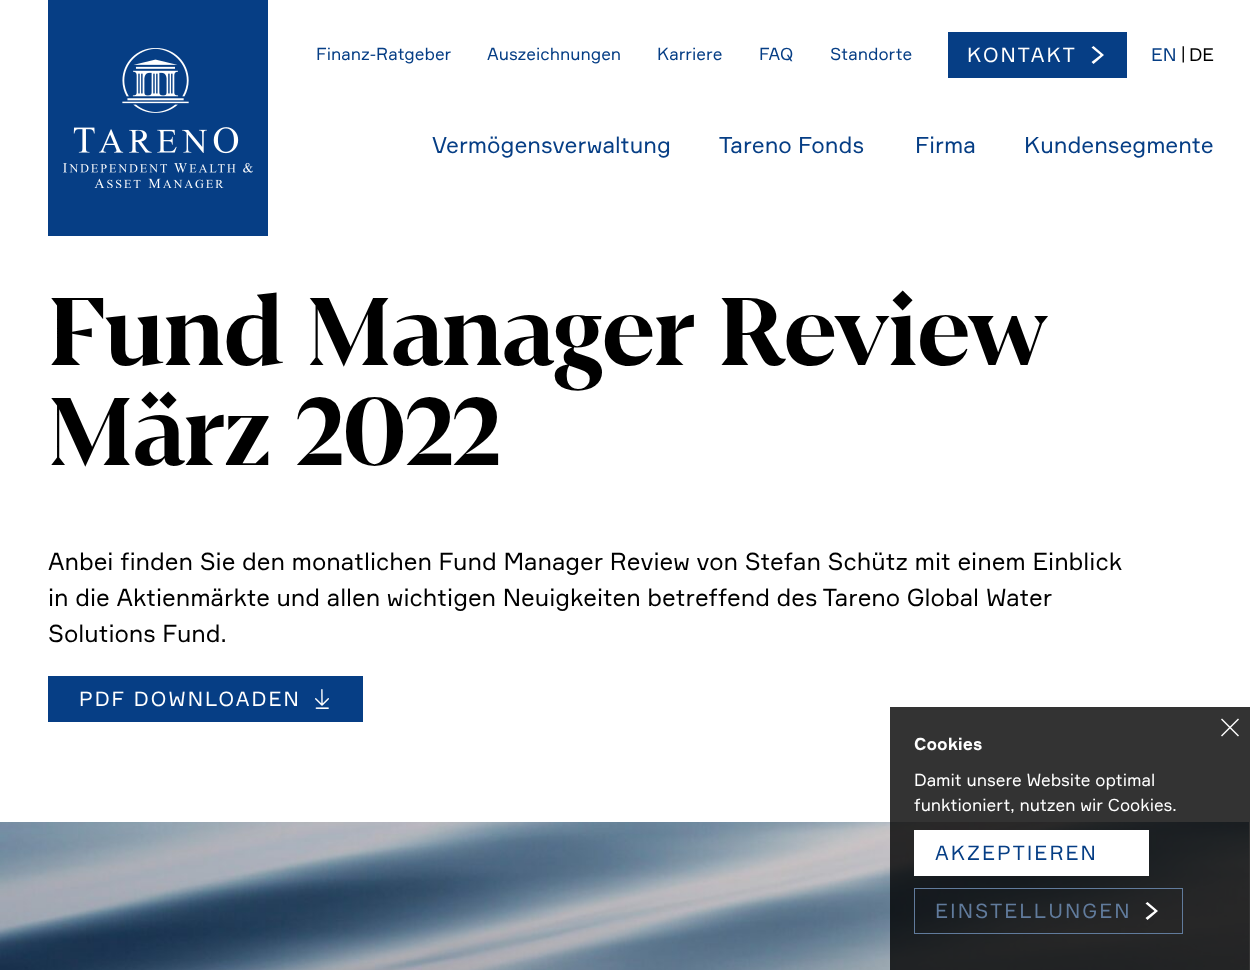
(async () => {
  const canvas = document.querySelector("canvas");
  canvas.width = 1250;
  canvas.height = 970;
  const ctx = canvas.getContext("2d");
  ctx.miterLimit = 4;
  ctx.fontKerning = "normal";
  async function loadImage(src) {
    const img = new Image();
    img.src = src;
    await img.decode();
    return img;
  }
  let path;

  ctx.fillStyle = "#ffffff";
  ctx.fillRect(0, 0, 1250, 970);
  ctx.fillStyle = "#063e85";
  ctx.fillRect(48, 0, 220, 236);
  ctx.drawImage(await loadImage("img/1.png"), 63, 48, 190, 140);
  ctx.fillRect(948, 32, 179, 46);
  ctx.fillStyle = "#ffffff";
  path = new Path2D("M1091.5 47.5L1093.5 46L1104 55L1093.5 64L1091.5 62L1100.5 55Z");
  ctx.fill(path);
  ctx.fillStyle = "#063e85";
  ctx.fillRect(48, 676, 315, 46);
  ctx.drawImage(await loadImage("img/2.png"), 315, 689, 14, 20);
  ctx.drawImage(await loadImage("img/3.png"), 0, 822, 1249, 148);
  ctx.fillStyle = "rgba(0, 0, 0, 0.8)";
  ctx.fillRect(890, 707, 360, 263);
  ctx.fillStyle = "#ffffff";
  path = new Path2D("M1222 718.5L1239 735.5L1238 736.5L1221 719.5Z");
  ctx.fill(path);
  path = new Path2D("M1221 735.5L1238 718.5L1239 719.5L1222 736.5Z");
  ctx.fill(path);
  ctx.fillRect(914, 830, 235, 46);
  ctx.strokeStyle = "#617b9c";
  ctx.strokeRect(914.5, 888.5, 268, 45);
  path = new Path2D("M1145.5 903.5L1147.5 902L1158 911L1147.5 920L1145.5 918L1154.5 911Z");
  ctx.fill(path);
  ctx.font = "17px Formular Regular";
  ctx.fillStyle = "#063e85";
  for (const [text, x, y] of [
    ["Finanz-Ratgeber", 316, 60],
    ["Auszeichnungen", 487, 60],
    ["Karriere", 657, 60],
    ["FAQ", 759, 60],
    ["Standorte", 830, 60],
  ]) {
    ctx.fillText(text, x, y);
  }
  ctx.letterSpacing = "2px";
  ctx.font = "20px Formular Regular";
  ctx.fillStyle = "#ffffff";
  ctx.fillText("KONTAKT", 967, 62);
  ctx.letterSpacing = "0px";
  ctx.font = "18px Formular Regular";
  ctx.fillStyle = "#063e85";
  ctx.fillText("EN", 1151, 61);
  ctx.fillStyle = "#000000";
  ctx.fillText("|", 1181, 60);
  ctx.fillText("DE", 1189, 61);
  ctx.font = "22.6px Formular Regular";
  ctx.fillStyle = "#063e85";
  for (const [text, x, y] of [
    ["Vermögensverwaltung", 432, 153],
    ["Tareno Fonds", 719, 153],
    ["Firma", 915, 153],
    ["Kundensegmente", 1024, 153],
  ]) {
    ctx.fillText(text, x, y);
  }
  ctx.font = "bold 105px 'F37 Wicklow'";
  ctx.fillStyle = "#000000";
  ctx.fillText("Fund Manager Review", 48, 365);
  ctx.fillText("März 2022", 48, 465);
  ctx.font = "24px Formular Regular";
  for (const [text, x, y] of [
    ["Anbei finden Sie den monatlichen Fund Manager Review von Stefan Schütz mit einem Einblick", 48, 570],
    ["in die Aktienmärkte und allen wichtigen Neuigkeiten betreffend des Tareno Global Water", 48, 606],
    ["Solutions Fund.", 48, 642],
  ]) {
    ctx.fillText(text, x, y);
  }
  ctx.letterSpacing = "2px";
  ctx.font = "20px Formular Regular";
  ctx.fillStyle = "#ffffff";
  ctx.fillText("PDF DOWNLOADEN", 79, 706);
  ctx.letterSpacing = "0px";
  ctx.font = "bold 17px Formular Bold";
  ctx.fillText("Cookies", 914, 750);
  ctx.font = "17px Formular Regular";
  ctx.fillText("Damit unsere Website optimal", 914, 786);
  ctx.fillText("funktioniert, nutzen wir Cookies.", 914, 811);
  ctx.letterSpacing = "2px";
  ctx.font = "20px Formular Regular";
  ctx.fillStyle = "#063e85";
  ctx.fillText("AKZEPTIEREN", 935, 860);
  ctx.fillStyle = "#617b9c";
  ctx.fillText("EINSTELLUNGEN", 935, 918);
})();
